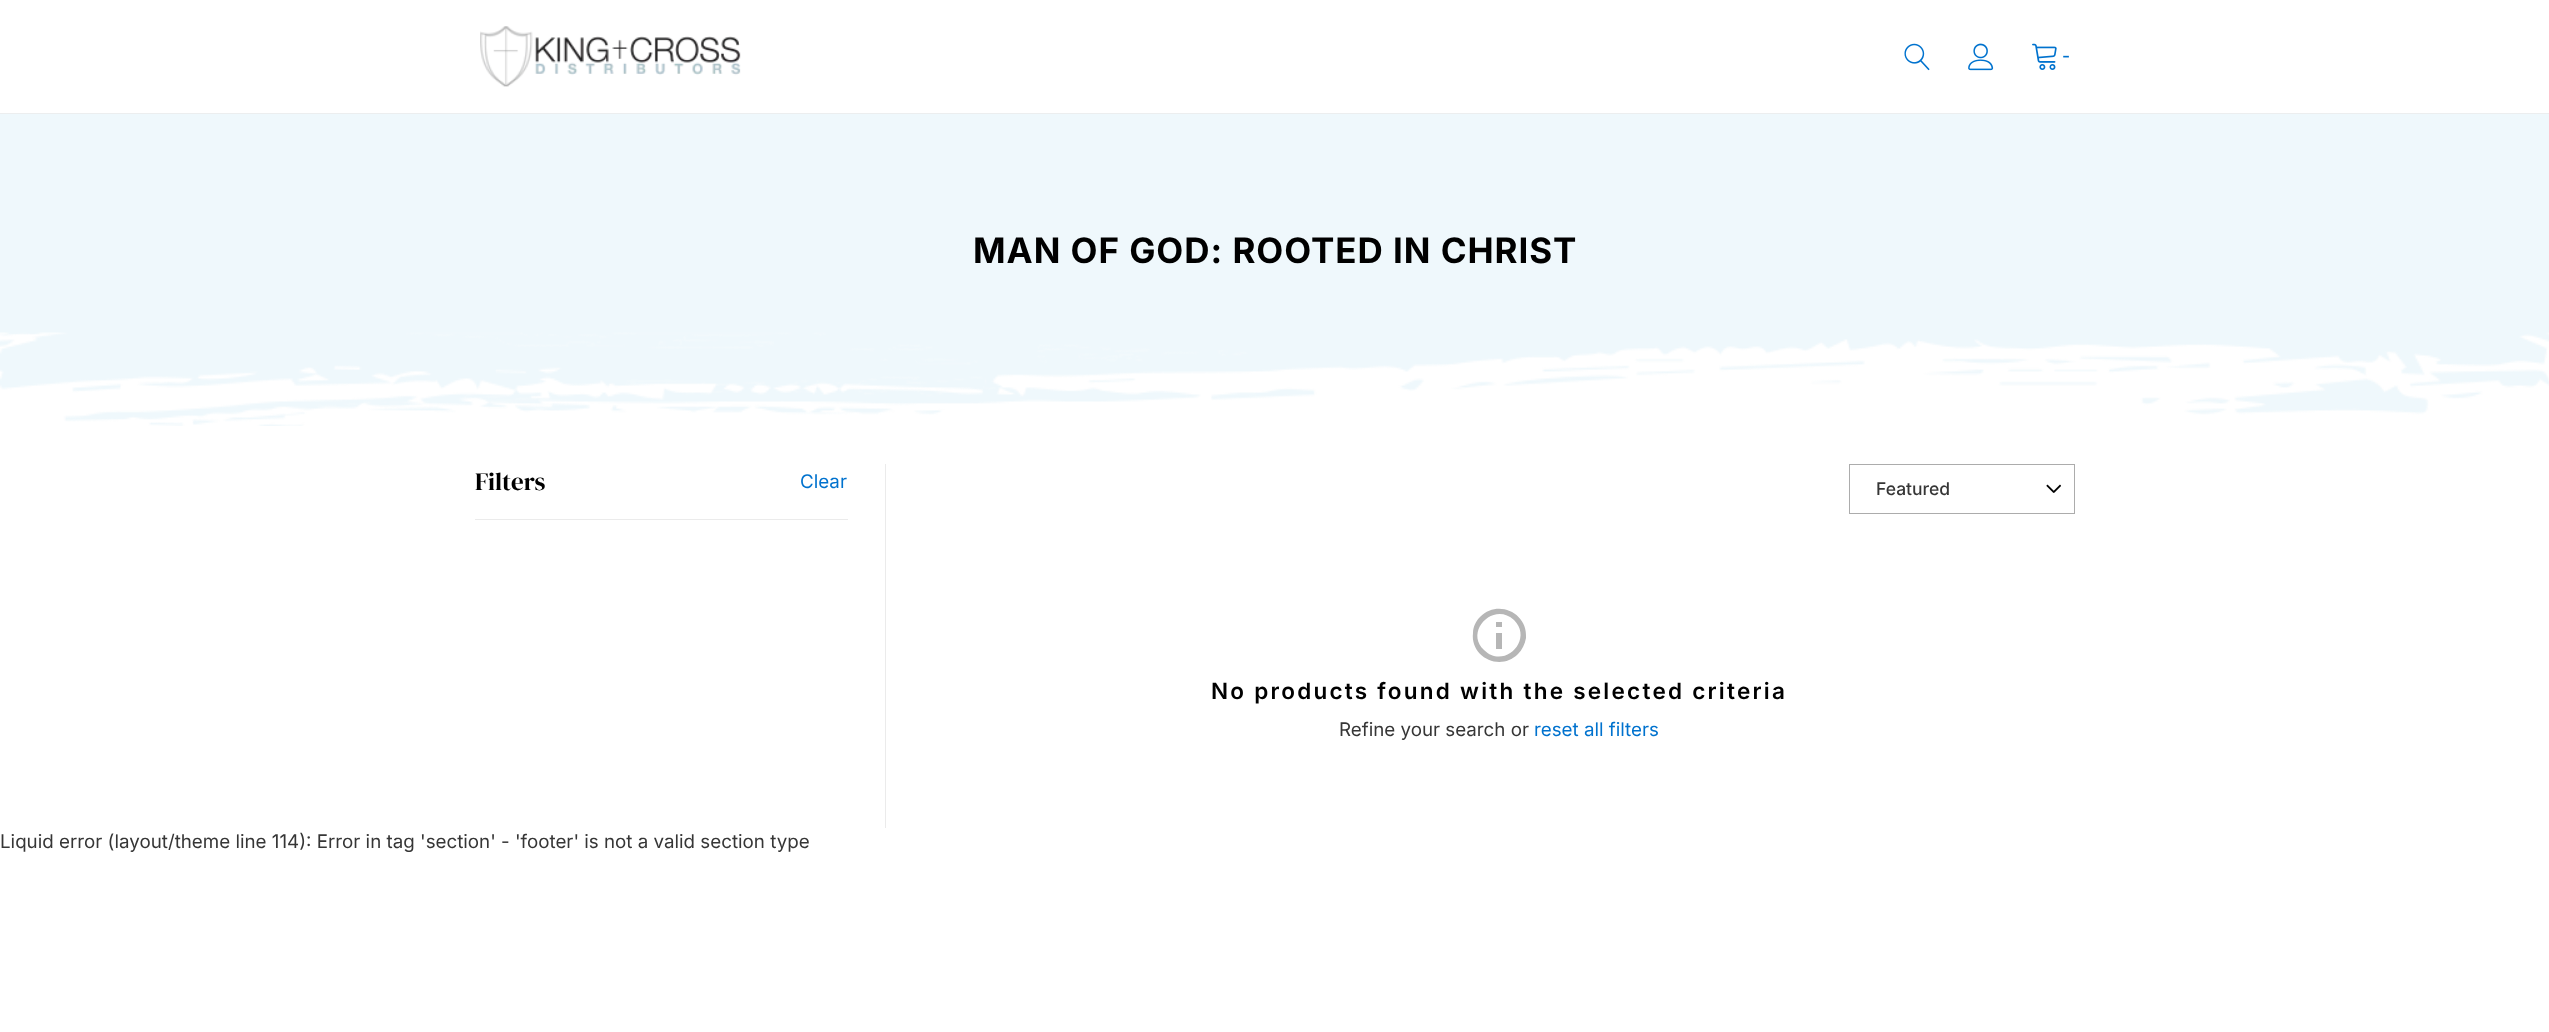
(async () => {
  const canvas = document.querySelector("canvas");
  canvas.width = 2549;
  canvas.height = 1032;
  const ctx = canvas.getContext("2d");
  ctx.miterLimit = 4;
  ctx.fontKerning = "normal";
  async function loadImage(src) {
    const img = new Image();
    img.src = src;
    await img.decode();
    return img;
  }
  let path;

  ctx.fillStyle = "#ffffff";
  ctx.fillRect(0, 0, 2549, 1032);
  ctx.fillStyle = "#ebebeb";
  ctx.fillRect(0, 113, 2549, 1);
  ctx.drawImage(await loadImage("img/1.png"), 480, 26, 261, 61);
  ctx.drawImage(await loadImage("img/2.png"), 1904, 43, 26, 28);
  ctx.drawImage(await loadImage("img/3.png"), 1968, 43, 26, 28);
  ctx.drawImage(await loadImage("img/4.png"), 2032, 43, 25, 27);
  ctx.drawImage(await loadImage("img/5.png"), 0, 113, 2549, 313);
  ctx.fillRect(475, 519, 373, 1);
  ctx.fillRect(885, 464, 1, 364);
  ctx.drawImage(await loadImage("img/6.png"), 2046, 484, 15, 9);
  ctx.strokeStyle = "#acacac";
  ctx.strokeRect(1849.5, 464.5, 225, 49);
  ctx.fillStyle = "#b6b6b6";
  path = new Path2D("M1514 620C1494 601 1464 631 1484 650C1504 670 1534 640 1514 620ZM1480 617C1498 599 1528 613 1526 638C1525 644 1522 650 1518 654C1500 672 1470 657 1473 633C1473 627 1476 621 1480 617ZM1502 649H1496V633H1502ZM1502 627H1496V622H1502Z");
  ctx.fill(path);
  ctx.font = "500 17.5px Inter";
  ctx.fillStyle = "#0072ce";
  ctx.fillText("-", 2062, 62);
  ctx.letterSpacing = "0.95px";
  ctx.font = "bold 35px Inter";
  ctx.fillStyle = "#000000";
  ctx.fillText("MAN OF GOD: ROOTED IN CHRIST", 973, 263);
  ctx.letterSpacing = "0px";
  ctx.font = "25px DM Serif Display";
  ctx.fillText("Filters", 475, 490);
  ctx.font = "18.75px Inter";
  ctx.fillStyle = "#0072ce";
  ctx.fillText("Clear", 800, 488);
  ctx.font = "500 17.5px Inter";
  ctx.fillStyle = "#363636";
  ctx.fillText("Featured", 1876, 495);
  ctx.letterSpacing = "2.25px";
  ctx.font = "600 22.5px Inter";
  ctx.fillStyle = "#000000";
  ctx.fillText("No products found with the selected criteria", 1211, 699);
  ctx.letterSpacing = "0px";
  ctx.font = "18.75px Inter";
  ctx.fillStyle = "#363636";
  ctx.fillText("Refine your search or", 1339, 736);
  ctx.fillStyle = "#0072ce";
  ctx.fillText("reset all filters", 1534, 736);
  ctx.fillStyle = "#363636";
  ctx.fillText("Liquid error (layout/theme line 114): Error in tag 'section' - 'footer' is not a valid section type", 0, 848);
})();
